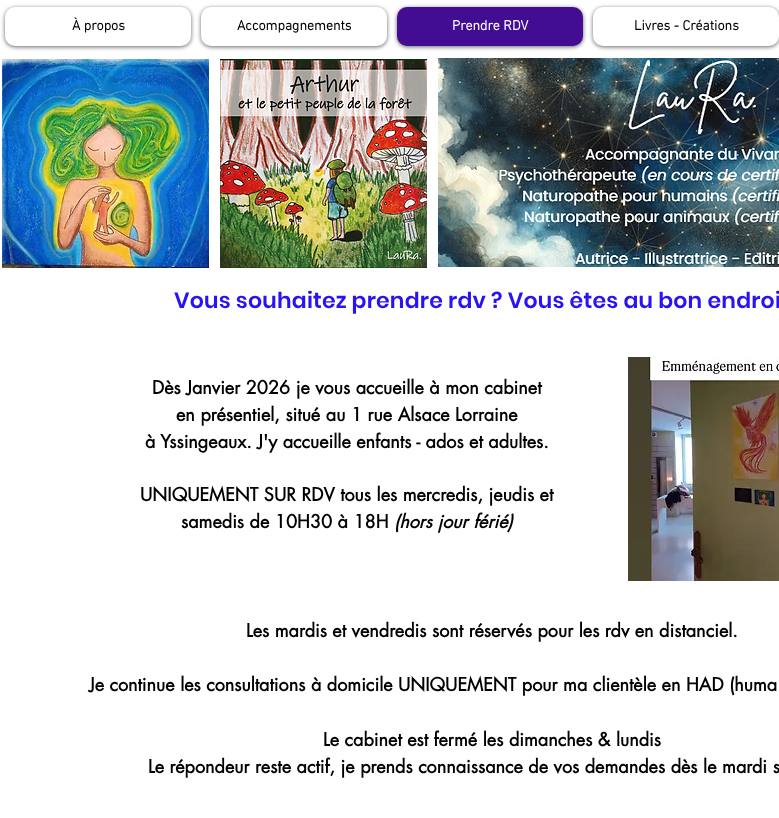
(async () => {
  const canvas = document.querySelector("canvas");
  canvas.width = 779;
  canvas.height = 818;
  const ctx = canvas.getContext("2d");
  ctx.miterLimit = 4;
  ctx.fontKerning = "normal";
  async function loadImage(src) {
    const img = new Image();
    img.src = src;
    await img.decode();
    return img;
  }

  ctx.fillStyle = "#ffffff";
  ctx.fillRect(0, 0, 779, 818);
  ctx.fillStyle = "rgba(0, 0, 0, 0.6)";
  ctx.filter = "blur(2px)";
  ctx.beginPath();
  ctx.roundRect(5, 8, 186, 39, 10);
  ctx.fill();
  ctx.filter = "none";
  ctx.fillStyle = "#ffffff";
  ctx.beginPath();
  ctx.roundRect(5, 7, 186, 39, 10);
  ctx.fill();
  ctx.fillStyle = "rgba(0, 0, 0, 0.6)";
  ctx.filter = "blur(2px)";
  ctx.beginPath();
  ctx.roundRect(201, 8, 186, 39, 10);
  ctx.fill();
  ctx.filter = "none";
  ctx.fillStyle = "#ffffff";
  ctx.beginPath();
  ctx.roundRect(201, 7, 186, 39, 10);
  ctx.fill();
  ctx.fillStyle = "rgba(0, 0, 0, 0.6)";
  ctx.filter = "blur(2px)";
  ctx.beginPath();
  ctx.roundRect(397, 8, 186, 39, 10);
  ctx.fill();
  ctx.filter = "none";
  ctx.fillStyle = "#420d93";
  ctx.beginPath();
  ctx.roundRect(397, 7, 186, 39, 10);
  ctx.fill();
  ctx.fillStyle = "rgba(0, 0, 0, 0.6)";
  ctx.filter = "blur(2px)";
  ctx.beginPath();
  ctx.roundRect(593, 8, 186, 39, 10);
  ctx.fill();
  ctx.filter = "none";
  ctx.fillStyle = "#ffffff";
  ctx.beginPath();
  ctx.roundRect(593, 7, 186, 39, 10);
  ctx.fill();
  ctx.drawImage(await loadImage("img/1.png"), 2, 59, 207, 209);
  ctx.drawImage(await loadImage("img/2.png"), 220, 59, 207, 209);
  ctx.drawImage(await loadImage("img/3.png"), 438, 58, 341, 209);
  ctx.drawImage(await loadImage("img/4.png"), 628, 357, 151, 224);
  ctx.font = "bold 14px 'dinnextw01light'";
  ctx.fillStyle = "#000000";
  ctx.fillText("À propos", 72, 30);
  ctx.fillText("Accompagnements", 237, 30);
  ctx.fillStyle = "#ffffff";
  ctx.fillText("Prendre RDV", 452, 30);
  ctx.fillStyle = "#000000";
  ctx.fillText("Livres - Créations", 634, 30);
  ctx.letterSpacing = "0.22px";
  ctx.font = "600 22px Poppins";
  ctx.fillStyle = "#2913f3";
  ctx.fillText("Vous souhaitez prendre rdv ? Vous êtes au bon endroi", 174, 308);
  ctx.letterSpacing = "0px";
  ctx.font = "bold 18px futura";
  ctx.fillStyle = "#000000";
  for (const [text, x, y] of [
    ["Dès Janvier 2026 je vous accueille à mon cabinet", 152, 394],
    ["en présentiel, situé au 1 rue Alsace Lorraine", 176, 421],
    ["à Yssingeaux. J'y accueille enfants - ados et adultes.", 145, 448],
    ["UNIQUEMENT SUR RDV tous les mercredis, jeudis et", 140, 501],
    ["samedis de 10H30 à 18H", 181, 528],
  ]) {
    ctx.fillText(text, x, y);
  }
  ctx.font = "italic bold 18px futura";
  ctx.fillText("(hors jour férié)", 394, 528);
  ctx.font = "bold 18px futura";
  for (const [text, x, y] of [
    ["Les mardis et vendredis sont réservés pour les rdv en distanciel.", 246, 637],
    ["Je continue les consultations à domicile UNIQUEMENT pour ma clientèle en HAD (huma", 89, 691],
    ["Le cabinet est fermé les dimanches & lundis", 323, 746],
    ["Le répondeur reste actif, je prends connaissance de vos demandes dès le mardi s", 148, 773],
  ]) {
    ctx.fillText(text, x, y);
  }
})();
